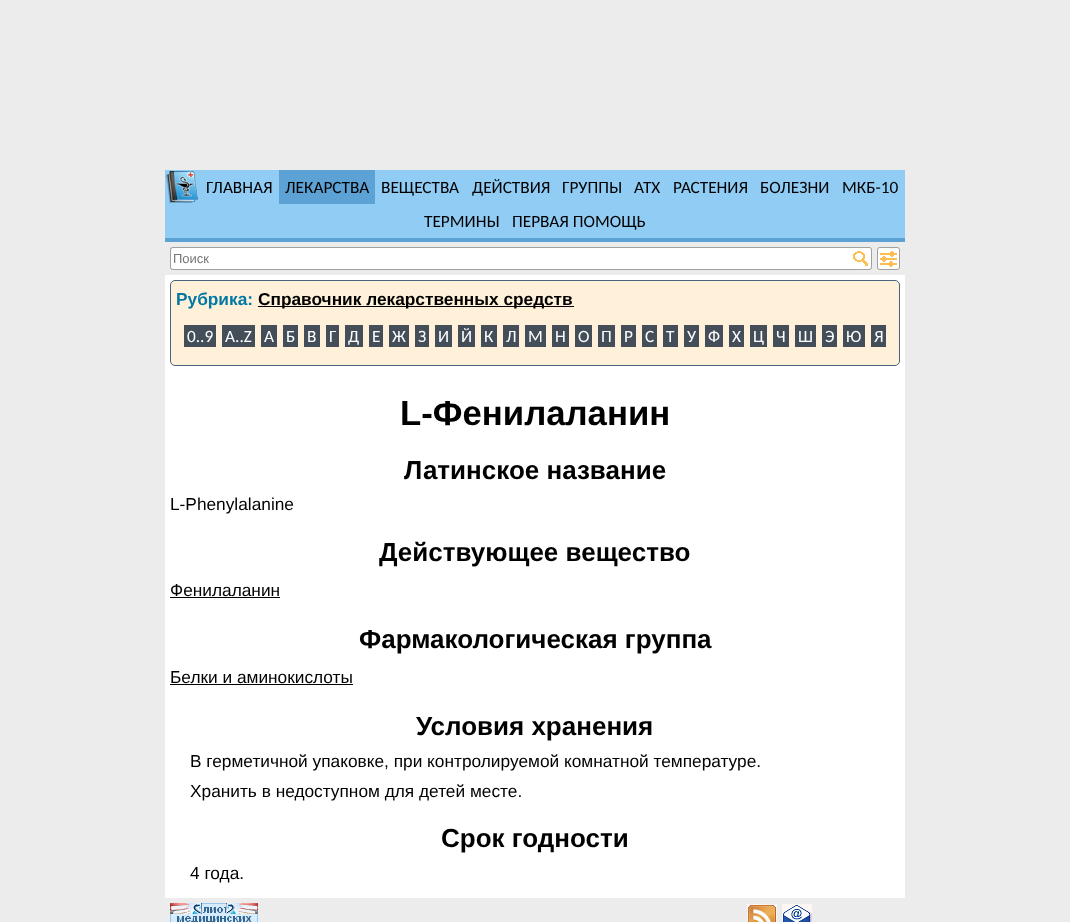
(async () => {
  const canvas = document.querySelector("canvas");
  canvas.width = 1070;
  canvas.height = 922;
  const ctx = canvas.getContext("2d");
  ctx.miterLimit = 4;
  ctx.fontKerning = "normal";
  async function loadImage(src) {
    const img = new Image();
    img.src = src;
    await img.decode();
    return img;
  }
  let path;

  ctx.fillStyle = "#ececec";
  ctx.fillRect(0, 0, 1070, 922);
  ctx.fillStyle = "#90ccf4";
  ctx.fillRect(165, 170, 740, 68);
  ctx.drawImage(await loadImage("img/1.png"), 166, 171, 32, 32);
  ctx.fillStyle = "#5da2d5";
  ctx.fillRect(165, 238, 740, 4);
  ctx.fillRect(279, 170, 96, 34);
  ctx.fillStyle = "#ffffff";
  ctx.beginPath();
  ctx.roundRect(170, 247, 682, 23, [3, 0, 0, 3]);
  ctx.fill();
  ctx.fillStyle = "#a0a0a0";
  path = new Path2D("M173 247H852V270H173C171 270 170 269 170 267V250C170 248 171 247 173 247ZM173 248H852V269H173C172 269 171 268 171 267V250C171 249 172 248 173 248Z");
  ctx.fill(path, "evenodd");
  ctx.drawImage(await loadImage("img/2.png"), 852, 247, 20, 23);
  ctx.drawImage(await loadImage("img/3.png"), 877, 247, 23, 23);
  ctx.fillStyle = "#ffffff";
  ctx.fillRect(165, 275, 740, 623);
  ctx.fillStyle = "#fff1d9";
  ctx.beginPath();
  ctx.roundRect(170.5, 280.5, 729, 85, 4.5);
  ctx.fill();
  ctx.strokeStyle = "#4a637c";
  ctx.stroke();
  for (const [x, y, w, h, color] of [
    [258, 306, 316, 1, "#000000"],
    [184, 325, 32, 22, "#434e59"],
    [222, 325, 33, 22, "#434e59"],
    [261, 325, 16, 22, "#434e59"],
    [283, 325, 15, 22, "#434e59"],
    [304, 325, 16, 22, "#434e59"],
    [326, 325, 13, 22, "#434e59"],
    [345, 325, 18, 22, "#434e59"],
    [369, 325, 14, 22, "#434e59"],
    [389, 325, 20, 22, "#434e59"],
    [415, 325, 14, 22, "#434e59"],
    [435, 325, 17, 22, "#434e59"],
    [458, 325, 17, 22, "#434e59"],
    [481, 325, 16, 22, "#434e59"],
    [503, 325, 16, 22, "#434e59"],
    [525, 325, 21, 22, "#434e59"],
    [552, 325, 17, 22, "#434e59"],
    [575, 325, 17, 22, "#434e59"],
    [598, 325, 17, 22, "#434e59"],
    [621, 325, 15, 22, "#434e59"],
    [642, 325, 15, 22, "#434e59"],
    [663, 325, 15, 22, "#434e59"],
    [684, 325, 15, 22, "#434e59"],
    [705, 325, 18, 22, "#434e59"],
    [729, 325, 15, 22, "#434e59"],
    [750, 325, 17, 22, "#434e59"],
    [773, 325, 16, 22, "#434e59"],
    [795, 325, 21, 22, "#434e59"],
    [822, 325, 15, 22, "#434e59"],
    [843, 325, 22, 22, "#434e59"],
    [871, 325, 15, 22, "#434e59"],
    [170, 597, 110, 1, "#000000"],
    [170, 684, 183, 1, "#000000"],
  ]) {
    ctx.fillStyle = color;
    ctx.fillRect(x, y, w, h);
  }
  ctx.drawImage(await loadImage("img/4.png"), 170, 903, 88, 19);
  ctx.drawImage(await loadImage("img/5.png"), 747, 904, 30, 18);
  ctx.drawImage(await loadImage("img/6.png"), 782, 904, 30, 18);
  ctx.font = "17.3px Carlito";
  for (const [text, x, y] of [
    ["ГЛАВНАЯ", 206, 193],
    ["ЛЕКАРСТВА", 285, 193],
    ["ВЕЩЕСТВА", 381, 193],
    ["ДЕЙСТВИЯ", 472, 193],
    ["ГРУППЫ", 562, 193],
    ["АТХ", 634, 193],
    ["РАСТЕНИЯ", 673, 193],
    ["БОЛЕЗНИ", 760, 193],
    ["МКБ-10", 842, 193],
    ["ТЕРМИНЫ", 424, 227],
    ["ПЕРВАЯ ПОМОЩЬ", 512, 227],
  ]) {
    ctx.fillText(text, x, y);
  }
  ctx.font = "13px Liberation Sans";
  ctx.fillStyle = "#757575";
  ctx.fillText("Поиск", 173, 263);
  ctx.font = "bold 17.3px Liberation Sans";
  ctx.fillStyle = "#0078a3";
  ctx.fillText("Рубрика:", 176, 305);
  ctx.fillStyle = "#000000";
  ctx.fillText("Справочник лекарственных средств", 258, 305);
  ctx.font = "17.3px Carlito";
  ctx.fillStyle = "#ffffff";
  for (const [text, x, y] of [
    ["0..9", 187, 342],
    ["A..Z", 225, 342],
    ["А", 264, 342],
    ["Б", 286, 342],
    ["В", 307, 342],
    ["Г", 329, 342],
    ["Д", 348, 342],
    ["Е", 372, 342],
    ["Ж", 392, 342],
    ["З", 418, 342],
    ["И", 438, 342],
    ["Й", 461, 342],
    ["К", 484, 342],
    ["Л", 506, 342],
    ["М", 528, 342],
    ["Н", 555, 342],
    ["О", 578, 342],
    ["П", 601, 342],
    ["Р", 624, 342],
    ["С", 645, 342],
    ["Т", 666, 342],
    ["У", 687, 342],
    ["Ф", 708, 342],
    ["Х", 732, 342],
    ["Ц", 753, 342],
    ["Ч", 776, 342],
    ["Ш", 798, 342],
    ["Э", 825, 342],
    ["Ю", 846, 342],
    ["Я", 874, 342],
  ]) {
    ctx.fillText(text, x, y);
  }
  ctx.font = "bold 34.75px Liberation Sans";
  ctx.fillStyle = "#000000";
  ctx.fillText("L-Фенилаланин", 400, 425);
  ctx.font = "bold 26px Liberation Sans";
  ctx.fillText("Латинское название", 404, 479);
  ctx.font = "17.3px Liberation Sans";
  ctx.fillText("L-Phenylalanine", 170, 510);
  ctx.font = "bold 26px Liberation Sans";
  ctx.fillText("Действующее вещество", 379, 561);
  ctx.font = "17.3px Liberation Sans";
  ctx.fillText("Фенилаланин", 170, 596);
  ctx.font = "bold 26px Liberation Sans";
  ctx.fillText("Фармакологическая группа", 359, 648);
  ctx.font = "17.3px Liberation Sans";
  ctx.fillText("Белки и аминокислоты", 170, 683);
  ctx.font = "bold 26px Liberation Sans";
  ctx.fillText("Условия хранения", 416, 735);
  ctx.font = "17.3px Liberation Sans";
  ctx.fillText("В герметичной упаковке, при контролируемой комнатной температуре.", 190, 767);
  ctx.fillText("Хранить в недоступном для детей месте.", 190, 797);
  ctx.font = "bold 26px Liberation Sans";
  ctx.fillText("Срок годности", 441, 847);
  ctx.font = "17.3px Liberation Sans";
  ctx.fillText("4 года.", 190, 879);
})();
